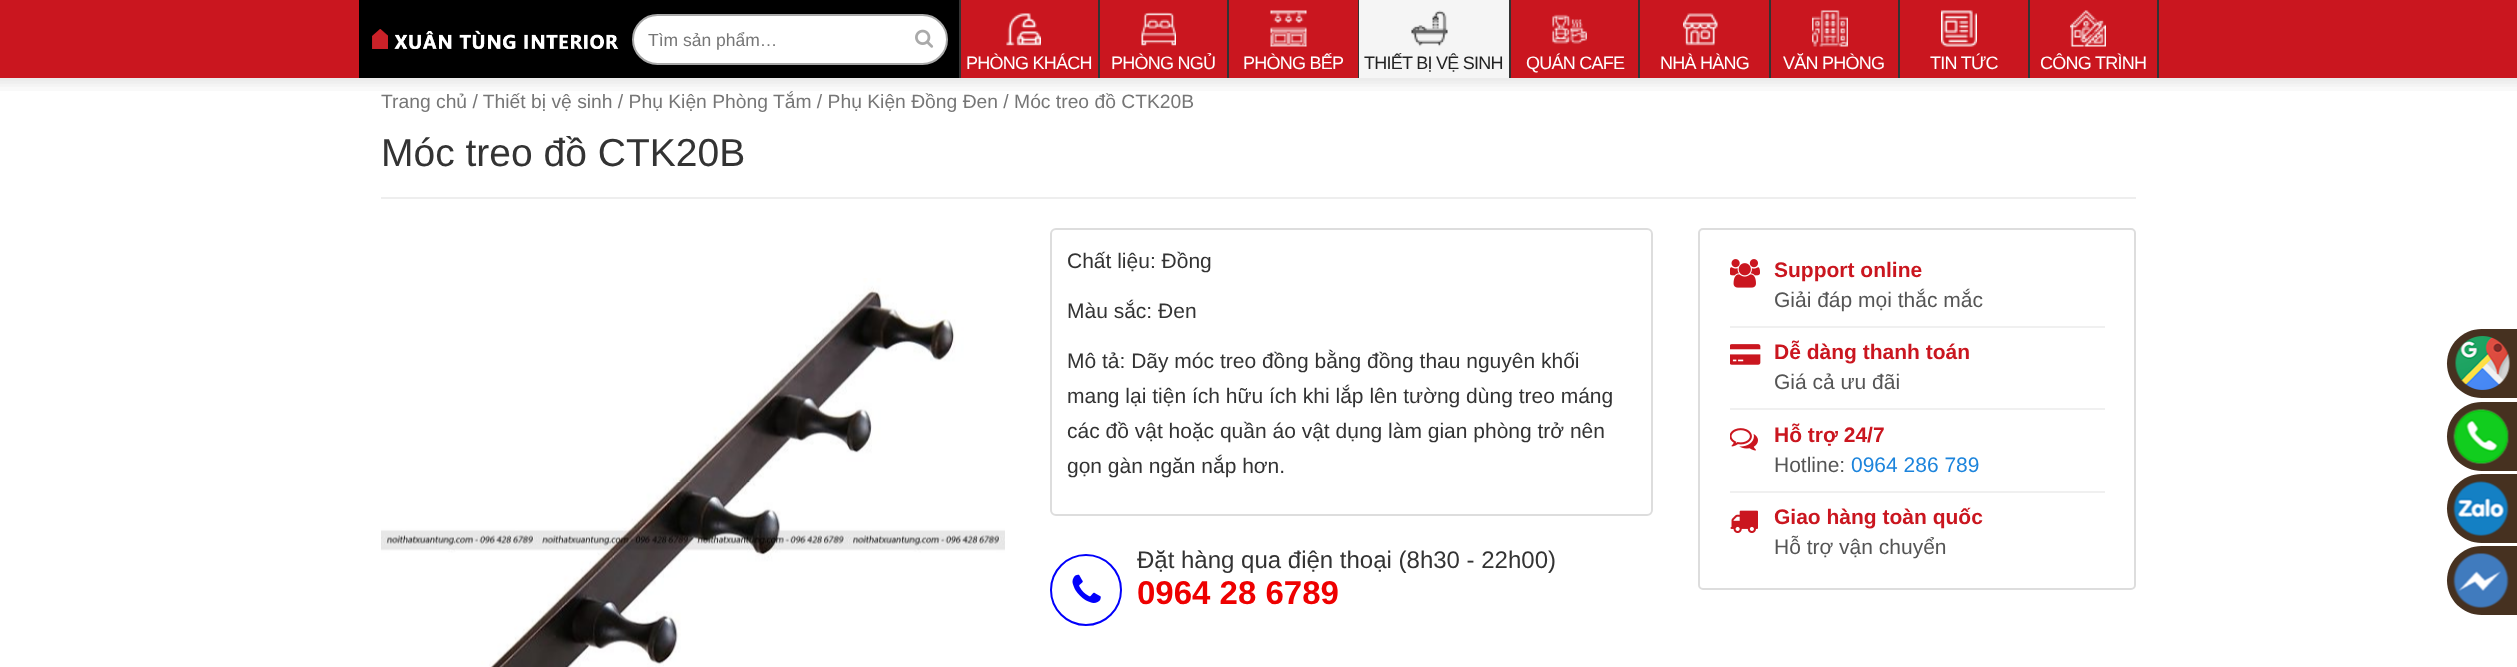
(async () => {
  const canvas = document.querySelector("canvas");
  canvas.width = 2517;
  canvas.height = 667;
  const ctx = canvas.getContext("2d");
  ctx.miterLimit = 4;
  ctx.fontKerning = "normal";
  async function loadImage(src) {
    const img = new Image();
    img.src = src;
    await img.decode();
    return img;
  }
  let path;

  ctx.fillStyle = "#ffffff";
  ctx.fillRect(0, 0, 2517, 667);
  ctx.fillStyle = "#ca161f";
  ctx.fillRect(0, 0, 2517, 78);
  ctx.fillStyle = "#000000";
  ctx.fillRect(359, 0, 600, 78);
  ctx.drawImage(await loadImage("img/1.png"), 372, 29, 247, 20);
  ctx.fillStyle = "#ffffff";
  ctx.beginPath();
  ctx.roundRect(633, 15, 314, 49, 24.5);
  ctx.fill();
  ctx.strokeStyle = "#a9a9a9";
  ctx.lineWidth = 2;
  ctx.stroke();
  ctx.drawImage(await loadImage("img/2.png"), 915, 29, 19, 19);
  ctx.fillStyle = "#333333";
  ctx.fillRect(1098, 0, 2, 78);
  ctx.fillRect(959, 0, 2, 78);
  ctx.drawImage(await loadImage("img/3.png"), 1006, 13, 35, 33);
  ctx.fillRect(1227, 0, 2, 78);
  ctx.drawImage(await loadImage("img/4.png"), 1141, 12, 35, 35);
  ctx.fillRect(1358, 0, 1, 78);
  ctx.drawImage(await loadImage("img/5.png"), 1270, 10, 37, 37);
  ctx.fillStyle = "#f5f5f5";
  ctx.fillRect(1359, 0, 150, 78);
  ctx.fillStyle = "#333333";
  ctx.fillRect(1509, 0, 2, 78);
  ctx.drawImage(await loadImage("img/6.png"), 1411, 10, 37, 37);
  ctx.fillRect(1638, 0, 2, 78);
  ctx.drawImage(await loadImage("img/7.png"), 1552, 14, 35, 30);
  ctx.fillRect(1769, 0, 2, 78);
  ctx.drawImage(await loadImage("img/8.png"), 1683, 13, 35, 33);
  ctx.fillRect(1898, 0, 2, 78);
  ctx.drawImage(await loadImage("img/9.png"), 1812, 10, 36, 37);
  ctx.fillRect(2028, 0, 2, 78);
  ctx.drawImage(await loadImage("img/10.png"), 1941, 10, 36, 37);
  ctx.fillRect(2157, 0, 2, 78);
  ctx.drawImage(await loadImage("img/11.png"), 2070, 10, 36, 37);
  ctx.drawImage(await loadImage("img/12.png"), 0, 78, 2517, 13);
  ctx.fillStyle = "#eeeeee";
  ctx.fillRect(381, 197, 1755, 2);
  ctx.drawImage(await loadImage("img/13.png"), 381, 278, 624, 389);
  ctx.beginPath();
  ctx.roundRect(1051, 229, 601, 286, 5);
  ctx.strokeStyle = "#dddddd";
  ctx.stroke();
  ctx.beginPath();
  ctx.arc(1086, 590, 35, 0, Math.PI * 2);
  ctx.strokeStyle = "#0200fb";
  ctx.stroke();
  ctx.drawImage(await loadImage("img/14.png"), 1072, 574, 29, 29);
  ctx.beginPath();
  ctx.roundRect(1699, 229, 436, 360, 4);
  ctx.strokeStyle = "#dddddd";
  ctx.stroke();
  ctx.fillStyle = "#f0f0f0";
  ctx.fillRect(1730, 326, 375, 2);
  ctx.drawImage(await loadImage("img/15.png"), 1730, 259, 30, 29);
  ctx.fillRect(1730, 408, 375, 2);
  ctx.drawImage(await loadImage("img/16.png"), 1730, 344, 31, 21);
  ctx.fillRect(1730, 491, 375, 2);
  ctx.drawImage(await loadImage("img/17.png"), 1730, 428, 28, 23);
  ctx.drawImage(await loadImage("img/18.png"), 1730, 510, 28, 23);
  ctx.fillStyle = "#463120";
  path = new Path2D("M2481.5 329H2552V398H2481.5C2462.5 398 2447 382.5 2447 363.5C2447 344.5 2462.5 329 2481.5 329Z");
  ctx.fill(path);
  ctx.drawImage(await loadImage("img/19.png"), 2455, 336, 55, 54);
  path = new Path2D("M2481.5 402H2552V471H2481.5C2462.5 471 2447 455.5 2447 436.5C2447 417.5 2462.5 402 2481.5 402Z");
  ctx.fill(path);
  ctx.drawImage(await loadImage("img/20.png"), 2453, 409, 56, 55);
  path = new Path2D("M2481.5 474H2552V543H2481.5C2462.5 543 2447 527.5 2447 508.5C2447 489.5 2462.5 474 2481.5 474Z");
  ctx.fill(path);
  ctx.drawImage(await loadImage("img/21.png"), 2453, 481, 56, 55);
  path = new Path2D("M2481.5 546H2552V615H2481.5C2462.5 615 2447 599.5 2447 580.5C2447 561.5 2462.5 546 2481.5 546Z");
  ctx.fill(path);
  ctx.drawImage(await loadImage("img/22.png"), 2453, 553, 56, 55);
  ctx.font = "17.5px Liberation Sans";
  ctx.fillStyle = "#767676";
  ctx.fillText("Tìm sản phẩm…", 648, 46);
  ctx.letterSpacing = "-0.75px";
  ctx.font = "18px Liberation Sans";
  ctx.fillStyle = "#ffffff";
  for (const [text, x, y] of [
    ["PHÒNG KHÁCH", 966, 69],
    ["PHÒNG NGỦ", 1111, 69],
    ["PHÒNG BẾP", 1243, 69],
  ]) {
    ctx.fillText(text, x, y);
  }
  ctx.fillStyle = "#222222";
  ctx.fillText("THIẾT BỊ VỆ SINH", 1364, 69);
  ctx.fillStyle = "#ffffff";
  for (const [text, x, y] of [
    ["QUÁN CAFE", 1526, 69],
    ["NHÀ HÀNG", 1660, 69],
    ["VĂN PHÒNG", 1783, 69],
    ["TIN TỨC", 1930, 69],
    ["CÔNG TRÌNH", 2040, 69],
  ]) {
    ctx.fillText(text, x, y);
  }
  ctx.letterSpacing = "0px";
  ctx.font = "19.3px Liberation Sans";
  ctx.fillStyle = "#767676";
  ctx.fillText("Trang chủ / Thiết bị vệ sinh / Phụ Kiện Phòng Tắm / Phụ Kiện Đồng Đen / Móc treo đồ CTK20B", 381, 108);
  ctx.font = "39px Liberation Sans";
  ctx.fillStyle = "#333333";
  ctx.fillText("Móc treo đồ CTK20B", 381, 166);
  ctx.font = "21px Liberation Sans";
  for (const [text, x, y] of [
    ["Chất liệu: Đồng", 1067, 268],
    ["Màu sắc: Đen", 1067, 318],
    ["Mô tả: Dãy móc treo đồng bằng đồng thau nguyên khối", 1067, 368],
    ["mang lại tiện ích hữu ích khi lắp lên tường dùng treo máng", 1067, 403],
    ["các đồ vật hoặc quần áo vật dụng làm gian phòng trở nên", 1067, 438],
    ["gọn gàn ngăn nắp hơn.", 1067, 473],
  ]) {
    ctx.fillText(text, x, y);
  }
  ctx.font = "24px Liberation Sans";
  ctx.fillText("Đặt hàng qua điện thoại (8h30 - 22h00)", 1137, 568);
  ctx.font = "bold 33px Liberation Sans";
  ctx.fillStyle = "#ee0000";
  ctx.fillText("0964 28 6789", 1137, 604);
  ctx.font = "bold 21px Liberation Sans";
  ctx.fillStyle = "#ca161f";
  ctx.fillText("Support online", 1774, 277);
  ctx.font = "21px Liberation Sans";
  ctx.fillStyle = "#555555";
  ctx.fillText("Giải đáp mọi thắc mắc", 1774, 307);
  ctx.font = "bold 21px Liberation Sans";
  ctx.fillStyle = "#ca161f";
  ctx.fillText("Dễ dàng thanh toán", 1774, 359);
  ctx.font = "21px Liberation Sans";
  ctx.fillStyle = "#555555";
  ctx.fillText("Giá cả ưu đãi", 1774, 389);
  ctx.font = "bold 21px Liberation Sans";
  ctx.fillStyle = "#ca161f";
  ctx.fillText("Hỗ trợ 24/7", 1774, 442);
  ctx.font = "21px Liberation Sans";
  ctx.fillStyle = "#555555";
  ctx.fillText("Hotline:", 1774, 472);
  ctx.fillStyle = "#1c84dc";
  ctx.fillText("0964 286 789", 1851, 472);
  ctx.font = "bold 21px Liberation Sans";
  ctx.fillStyle = "#ca161f";
  ctx.fillText("Giao hàng toàn quốc", 1774, 524);
  ctx.font = "21px Liberation Sans";
  ctx.fillStyle = "#555555";
  ctx.fillText("Hỗ trợ vận chuyển", 1774, 554);
})();
